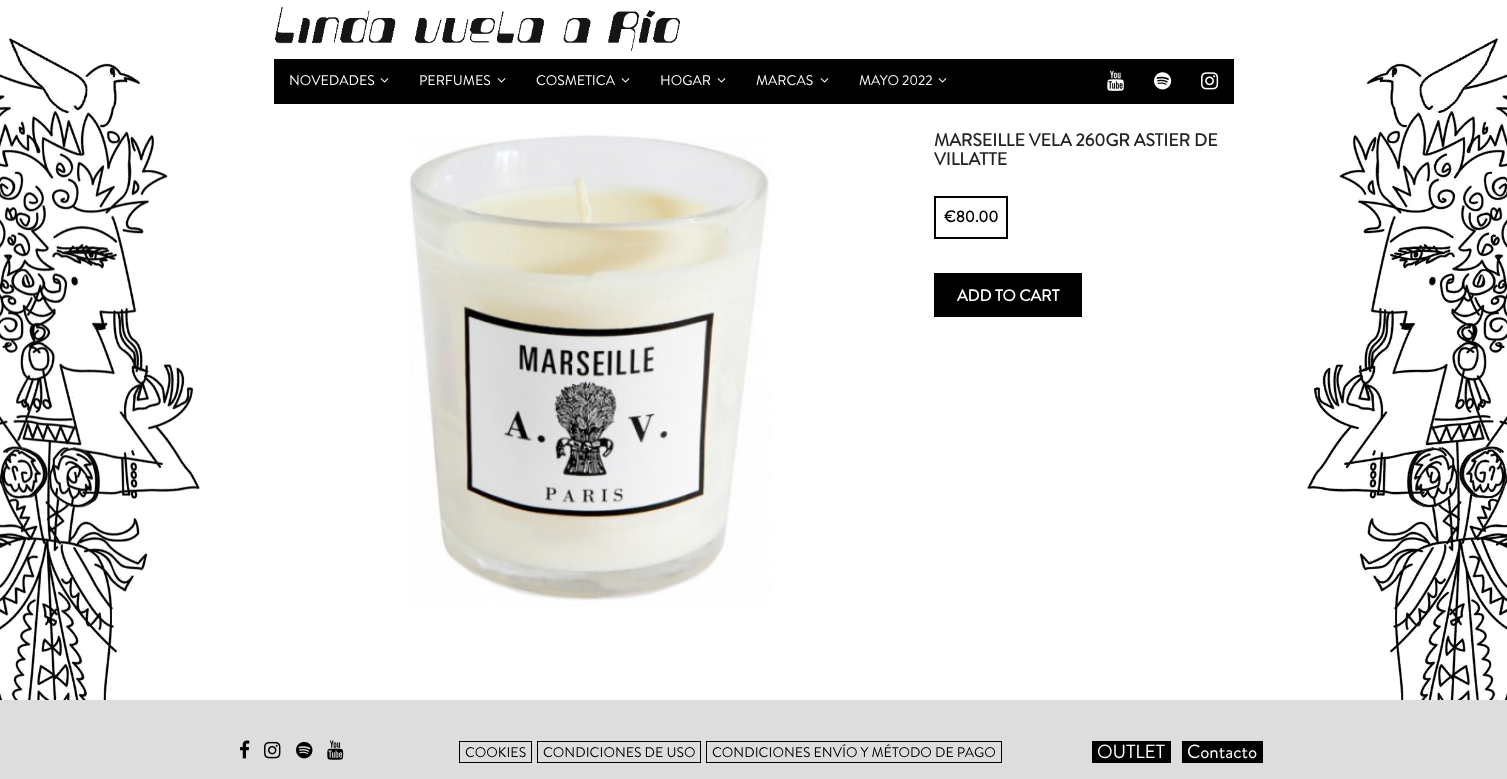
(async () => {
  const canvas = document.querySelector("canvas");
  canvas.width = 1507;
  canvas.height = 779;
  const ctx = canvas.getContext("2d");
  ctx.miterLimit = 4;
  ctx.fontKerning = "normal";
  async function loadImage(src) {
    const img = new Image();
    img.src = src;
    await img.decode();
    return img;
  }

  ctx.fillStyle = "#ffffff";
  ctx.fillRect(0, 0, 1507, 779);
  ctx.drawImage(await loadImage("img/1.png"), 0, 38, 200, 662);
  ctx.drawImage(await loadImage("img/2.png"), 275, 7, 405, 44);
  ctx.fillStyle = "#000000";
  ctx.fillRect(274, 59, 960, 45);
  ctx.drawImage(await loadImage("img/3.png"), 380, 78, 9, 5);
  ctx.drawImage(await loadImage("img/3.png"), 497, 78, 9, 5);
  ctx.drawImage(await loadImage("img/3.png"), 621, 78, 9, 5);
  ctx.drawImage(await loadImage("img/3.png"), 717, 78, 9, 5);
  ctx.drawImage(await loadImage("img/3.png"), 820, 78, 9, 5);
  ctx.drawImage(await loadImage("img/3.png"), 938, 78, 9, 5);
  ctx.drawImage(await loadImage("img/4.png"), 1107, 70, 17, 21);
  ctx.drawImage(await loadImage("img/5.png"), 1154, 72, 18, 18);
  ctx.drawImage(await loadImage("img/6.png"), 1201, 72, 18, 18);
  ctx.drawImage(await loadImage("img/7.png"), 1307, 38, 200, 662);
  ctx.drawImage(await loadImage("img/8.png"), 409, 134, 361, 473);
  ctx.strokeStyle = "#000000";
  ctx.lineWidth = 2;
  ctx.strokeRect(935, 197, 72, 41);
  ctx.fillRect(934, 273, 148, 44);
  ctx.fillStyle = "#dddddd";
  ctx.fillRect(0, 700, 1507, 79);
  ctx.drawImage(await loadImage("img/9.png"), 240, 740, 10, 19);
  ctx.drawImage(await loadImage("img/10.png"), 264, 741, 17, 18);
  ctx.drawImage(await loadImage("img/11.png"), 296, 741, 17, 18);
  ctx.drawImage(await loadImage("img/12.png"), 327, 740, 17, 20);
  ctx.lineWidth = 1;
  ctx.strokeRect(459.5, 741.5, 72, 21);
  ctx.strokeRect(537.5, 741.5, 163, 21);
  ctx.strokeRect(706.5, 741.5, 295, 21);
  ctx.fillStyle = "#000000";
  ctx.fillRect(1092, 741, 79, 22);
  ctx.fillRect(1182, 741, 81, 22);
  ctx.font = "14px Brandon Grotesque";
  ctx.fillStyle = "#ffffff";
  for (const [text, x, y] of [
    ["NOVEDADES", 289, 85],
    ["PERFUMES", 419, 85],
    ["COSMETICA", 536, 85],
    ["HOGAR", 660, 85],
    ["MARCAS", 756, 85],
    ["MAYO 2022", 859, 85],
  ]) {
    ctx.fillText(text, x, y);
  }
  ctx.font = "bold 17.6px Brandon Grotesque";
  ctx.fillStyle = "#232323";
  ctx.fillText("MARSEILLE VELA 260GR ASTIER DE", 934, 146);
  ctx.fillText("VILLATTE", 934, 165);
  ctx.font = "bold 16px Brandon Grotesque";
  ctx.fillStyle = "#000000";
  ctx.fillText("€80.00", 944, 222);
  ctx.fillStyle = "#ffffff";
  ctx.fillText("ADD TO CART", 957, 301);
  ctx.font = "14px Brandon Grotesque";
  ctx.fillStyle = "#000000";
  for (const [text, x, y] of [
    ["COOKIES", 465, 757],
    ["CONDICIONES DE USO", 543, 757],
    ["CONDICIONES ENVÍO Y MÉTODO DE PAGO", 712, 757],
  ]) {
    ctx.fillText(text, x, y);
  }
  ctx.font = "19px Brandon Grotesque";
  ctx.fillStyle = "#ffffff";
  ctx.fillText("OUTLET", 1097, 758);
  ctx.fillText("Contacto", 1187, 758);
})();
